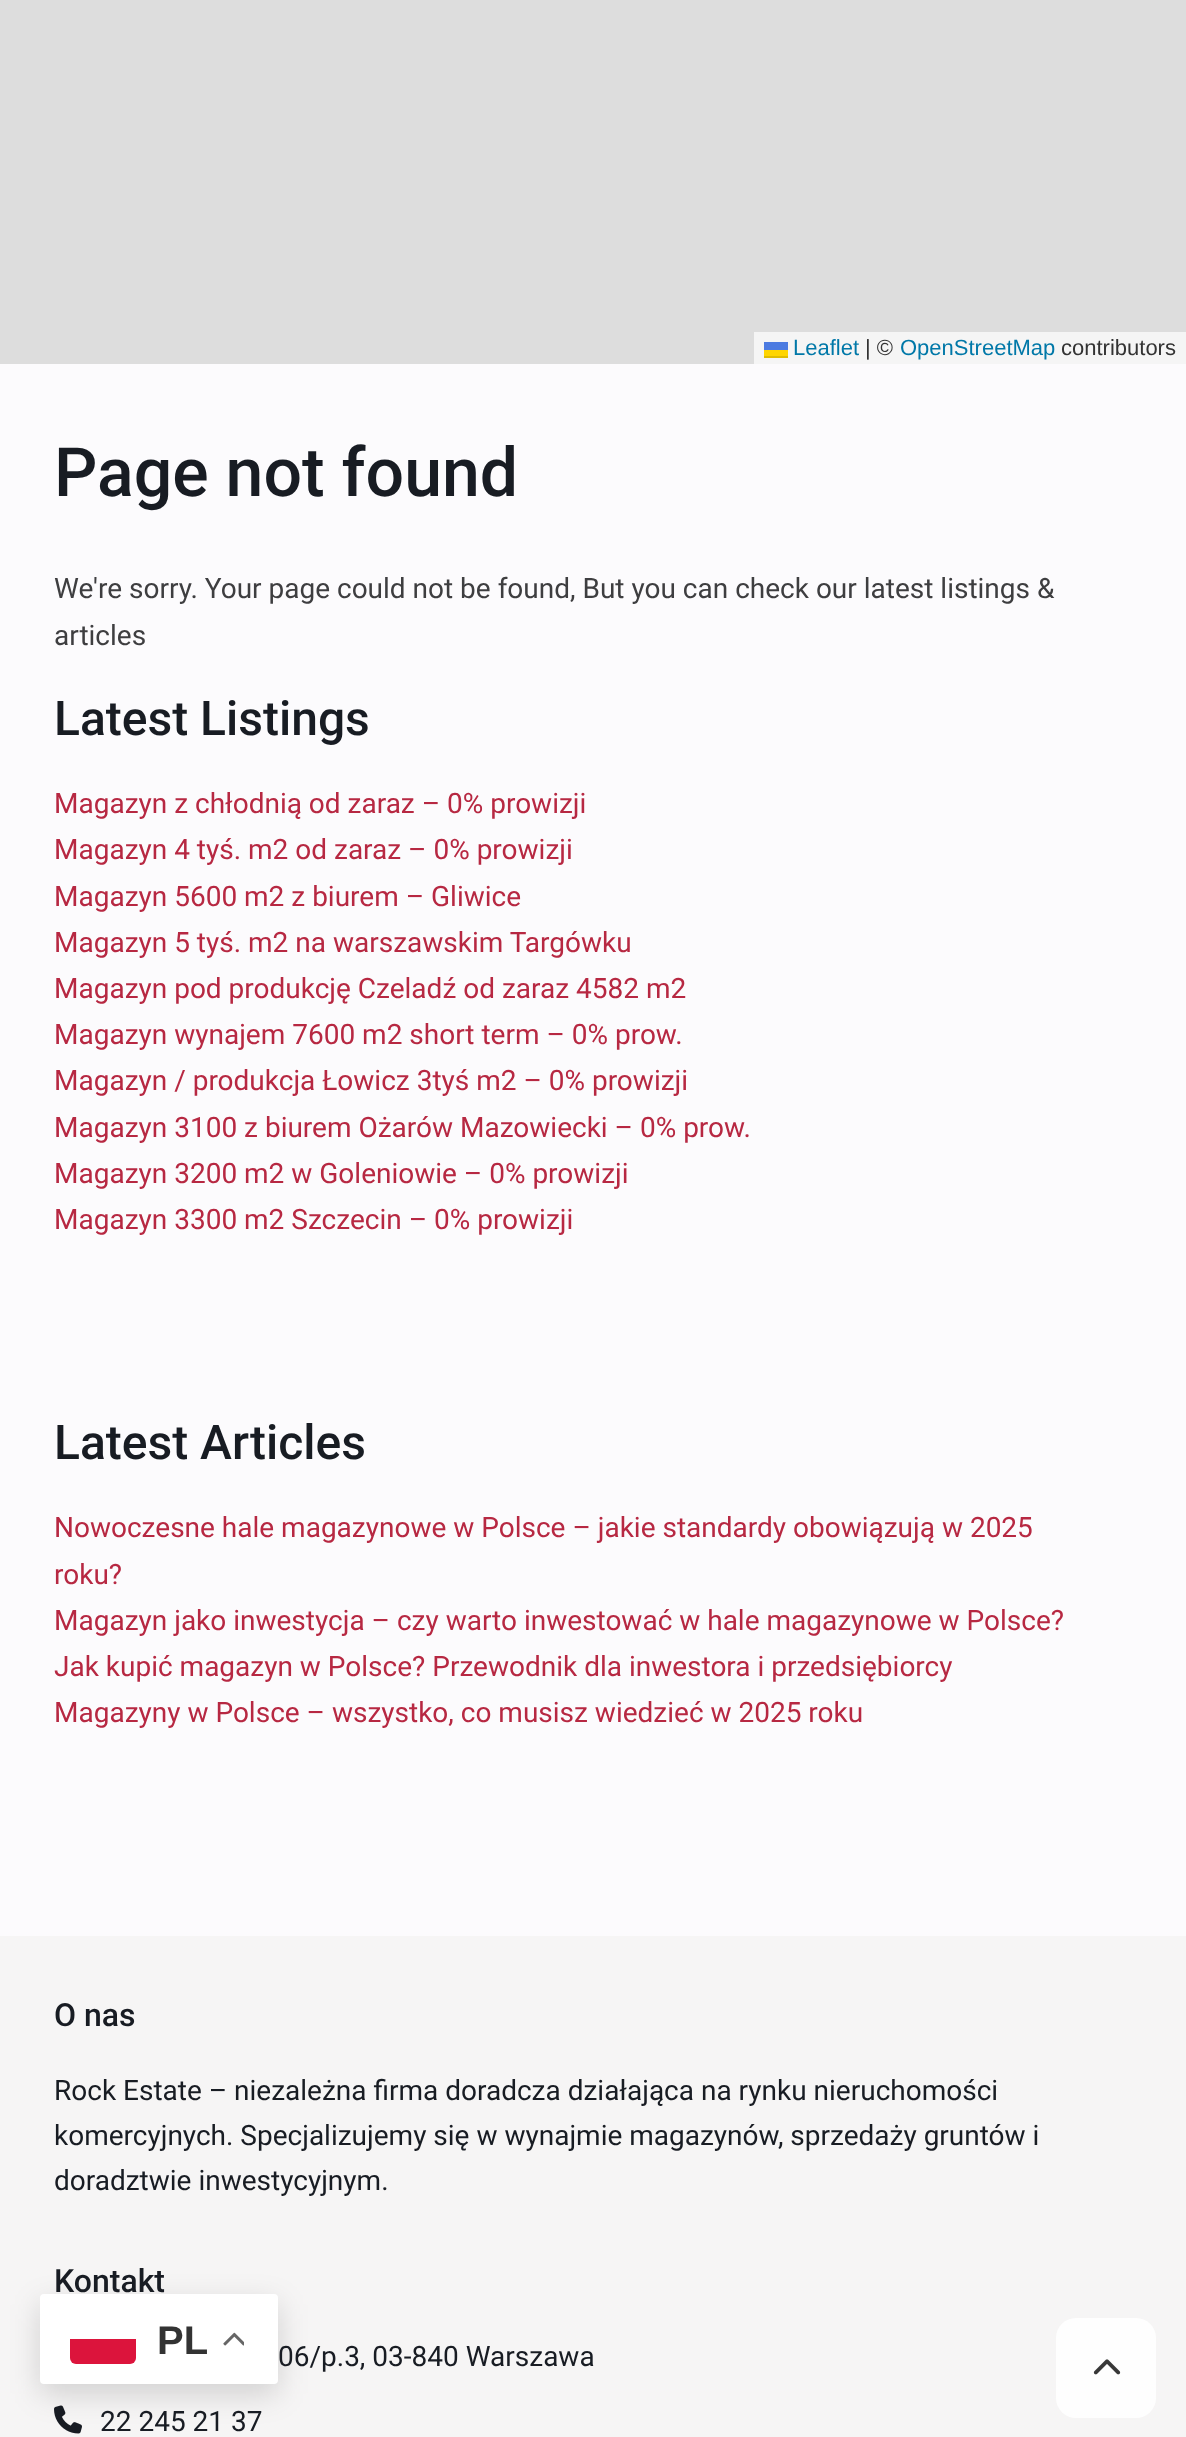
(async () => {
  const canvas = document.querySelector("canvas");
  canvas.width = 1186;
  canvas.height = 2437;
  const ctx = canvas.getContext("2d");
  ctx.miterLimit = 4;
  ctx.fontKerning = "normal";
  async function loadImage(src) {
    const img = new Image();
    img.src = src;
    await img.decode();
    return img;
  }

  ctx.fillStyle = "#fcfbfd";
  ctx.fillRect(0, 0, 1186, 2437);
  for (const [x, y, w, h, color] of [
    [0, 0, 1186, 364, "#dddddd"],
    [754, 332, 432, 32, "#f5f5f5"],
    [764, 342, 24, 8, "#4c7be1"],
    [764, 350, 24, 6, "#ffd500"],
    [764, 356, 24, 2, "#e0bc00"],
    [0, 1936, 1186, 501, "#f6f5f5"],
  ]) {
    ctx.fillStyle = color;
    ctx.fillRect(x, y, w, h);
  }
  ctx.drawImage(await loadImage("img/1.png"), 54, 2405, 28, 29);
  ctx.fillStyle = "rgba(0, 0, 0, 0.15)";
  ctx.filter = "blur(15px)";
  ctx.beginPath();
  ctx.roundRect(40, 2304, 238, 90, 4);
  ctx.fill();
  ctx.filter = "none";
  ctx.fillStyle = "#ffffff";
  ctx.beginPath();
  ctx.roundRect(40, 2294, 238, 90, 4);
  ctx.fill();
  ctx.fillStyle = "#dc143c";
  ctx.beginPath();
  ctx.roundRect(70, 2339, 66, 25, [0, 0, 6, 6]);
  ctx.fill();
  ctx.drawImage(await loadImage("img/2.png"), 223, 2332, 21, 14);
  ctx.fillStyle = "#fefefe";
  ctx.beginPath();
  ctx.roundRect(1056, 2318, 100, 100, 20);
  ctx.fill();
  ctx.drawImage(await loadImage("img/3.png"), 1093, 2359, 28, 16);
  ctx.font = "22px Liberation Sans";
  ctx.fillStyle = "#0078a8";
  ctx.fillText("Leaflet", 793, 355);
  ctx.fillStyle = "#333333";
  ctx.fillText("| ©", 865, 355);
  ctx.fillStyle = "#0078a8";
  ctx.fillText("OpenStreetMap", 900, 355);
  ctx.fillStyle = "#333333";
  ctx.fillText("contributors", 1061, 355);
  ctx.font = "500 68px Roboto";
  ctx.fillStyle = "#181c23";
  ctx.fillText("Page not found", 54, 496);
  ctx.font = "28px Roboto";
  ctx.fillStyle = "#3e3e40";
  ctx.fillText("We're sorry. Your page could not be found, But you can check our latest listings &", 54, 598);
  ctx.fillText("articles", 54, 645);
  ctx.font = "500 48px Roboto";
  ctx.fillStyle = "#181c23";
  ctx.fillText("Latest Listings", 54, 735);
  ctx.font = "28px Roboto";
  ctx.fillStyle = "#b72842";
  for (const [text, x, y] of [
    ["Magazyn z chłodnią od zaraz – 0% prowizji", 54, 813],
    ["Magazyn 4 tyś. m2 od zaraz – 0% prowizji", 54, 859],
    ["Magazyn 5600 m2 z biurem – Gliwice", 54, 906],
    ["Magazyn 5 tyś. m2 na warszawskim Targówku", 54, 952],
    ["Magazyn pod produkcję Czeladź od zaraz 4582 m2", 54, 998],
    ["Magazyn wynajem 7600 m2 short term – 0% prow.", 54, 1044],
    ["Magazyn / produkcja Łowicz 3tyś m2 – 0% prowizji", 54, 1090],
    ["Magazyn 3100 z biurem Ożarów Mazowiecki – 0% prow.", 54, 1137],
    ["Magazyn 3200 m2 w Goleniowie – 0% prowizji", 54, 1183],
    ["Magazyn 3300 m2 Szczecin – 0% prowizji", 54, 1229],
  ]) {
    ctx.fillText(text, x, y);
  }
  ctx.font = "500 48px Roboto";
  ctx.fillStyle = "#181c23";
  ctx.fillText("Latest Articles", 54, 1459);
  ctx.font = "28px Roboto";
  ctx.fillStyle = "#b72842";
  for (const [text, x, y] of [
    ["Nowoczesne hale magazynowe w Polsce – jakie standardy obowiązują w 2025", 54, 1537],
    ["roku?", 54, 1584],
    ["Magazyn jako inwestycja – czy warto inwestować w hale magazynowe w Polsce?", 54, 1630],
    ["Jak kupić magazyn w Polsce? Przewodnik dla inwestora i przedsiębiorcy", 54, 1676],
    ["Magazyny w Polsce – wszystko, co musisz wiedzieć w 2025 roku", 54, 1722],
  ]) {
    ctx.fillText(text, x, y);
  }
  ctx.font = "500 32px Roboto";
  ctx.fillStyle = "#181c23";
  ctx.fillText("O nas", 54, 2026);
  ctx.font = "28px Roboto";
  for (const [text, x, y] of [
    ["Rock Estate – niezależna firma doradcza działająca na rynku nieruchomości", 54, 2100],
    ["komercyjnych. Specjalizujemy się w wynajmie magazynów, sprzedaży gruntów i", 54, 2145],
    ["doradztwie inwestycyjnym.", 54, 2190],
  ]) {
    ctx.fillText(text, x, y);
  }
  ctx.font = "500 32px Roboto";
  ctx.fillText("Kontakt", 54, 2292);
  ctx.font = "28px Roboto";
  ctx.fillText("06/p.3, 03-840 Warszawa", 278, 2366);
  ctx.fillText("22 245 21 37", 100, 2431);
  ctx.font = "bold 40px Liberation Sans";
  ctx.fillStyle = "#333333";
  ctx.fillText("PL", 157, 2354);
})();
